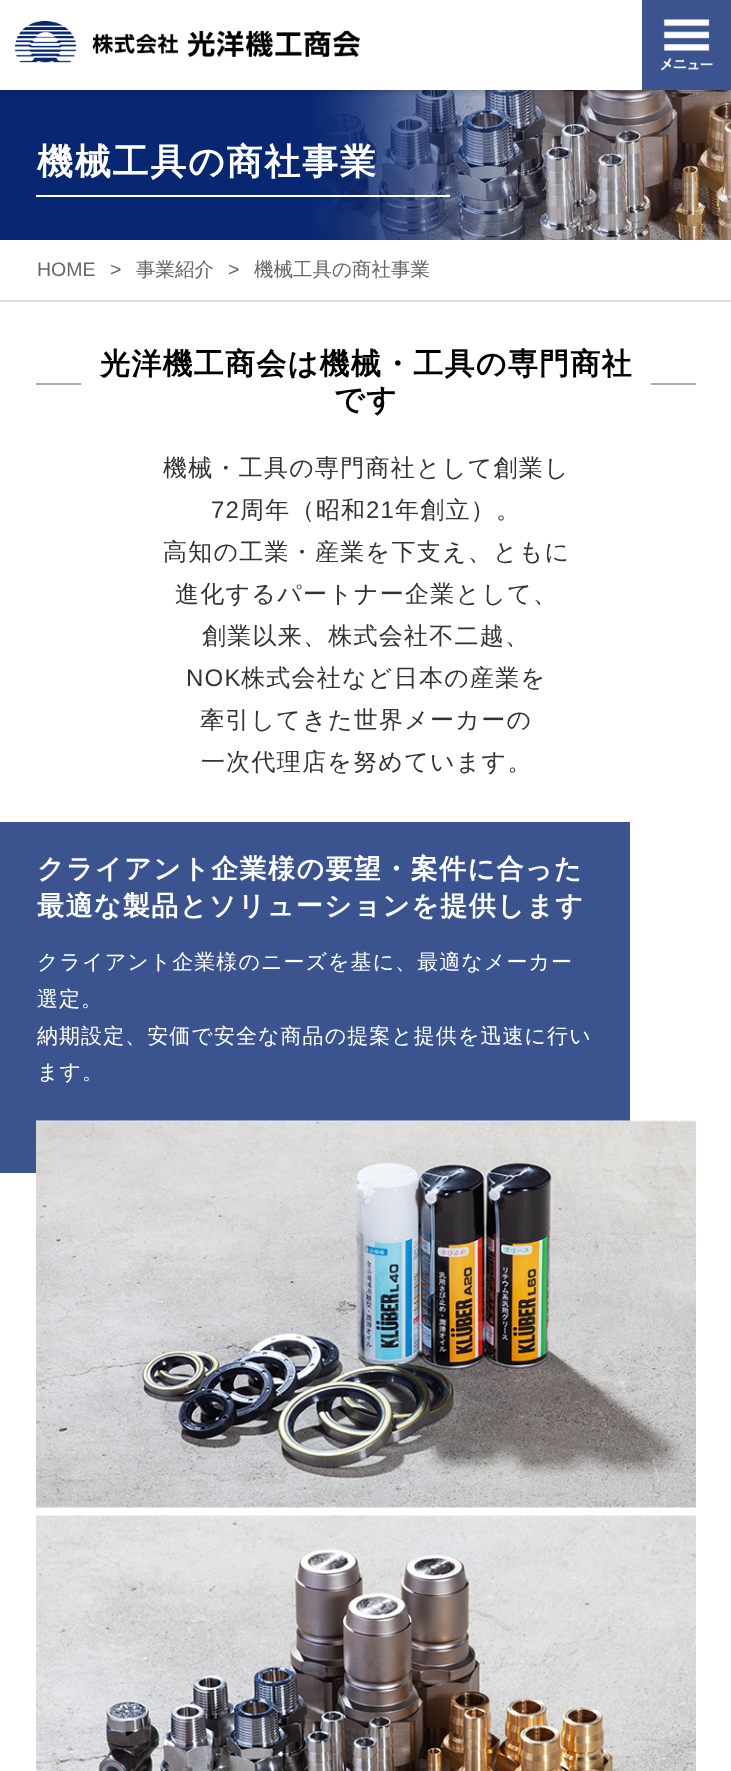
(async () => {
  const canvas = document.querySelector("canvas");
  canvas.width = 731;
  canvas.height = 1771;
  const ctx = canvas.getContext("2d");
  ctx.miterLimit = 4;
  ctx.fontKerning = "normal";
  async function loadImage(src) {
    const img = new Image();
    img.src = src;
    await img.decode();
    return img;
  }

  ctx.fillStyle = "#ffffff";
  ctx.fillRect(0, 0, 731, 1771);
  ctx.drawImage(await loadImage("img/3.png"), 0, 90, 731, 150);
  ctx.save();
  ctx.beginPath();
  ctx.rect(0, 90, 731, 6);
  ctx.clip();
  ctx.fillStyle = "rgba(0, 0, 0, 0.15)";
  ctx.filter = "blur(3px)";
  ctx.beginPath();
  ctx.rect(0, 3, 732, 90);
  ctx.fill();
  ctx.filter = "none";
  ctx.restore();
  ctx.drawImage(await loadImage("img/1.png"), 15, 21, 345, 42);
  ctx.drawImage(await loadImage("img/2.png"), 642, 0, 89, 90);
  for (const [x, y, w, h, color] of [
    [36, 195, 414, 2, "#ffffff"],
    [0, 300, 731, 2, "#dddddd"],
    [36, 383, 45, 2, "#aaaaaa"],
    [651, 383, 45, 2, "#aaaaaa"],
    [36, 822, 594, 299, "#3b5490"],
    [0, 822, 36, 351, "#3b5490"],
  ]) {
    ctx.fillStyle = color;
    ctx.fillRect(x, y, w, h);
  }
  ctx.drawImage(await loadImage("img/4.png"), 36, 1120, 660, 388);
  ctx.drawImage(await loadImage("img/5.png"), 36, 1515, 660, 256);
  ctx.letterSpacing = "1.75px";
  ctx.font = "bold 36px WenQuanYi Zen Hei";
  ctx.fillStyle = "#ffffff";
  ctx.fillText("機械工具の商社事業", 37, 174);
  ctx.letterSpacing = "0px";
  ctx.font = "19.5px Liberation Sans";
  ctx.fillStyle = "#666666";
  ctx.fillText("HOME", 37, 276);
  ctx.fillText(">", 110, 276);
  ctx.font = "500 19.5px WenQuanYi Zen Hei";
  ctx.fillText("事業紹介", 136, 276);
  ctx.font = "19.5px Liberation Sans";
  ctx.fillText(">", 228, 276);
  ctx.font = "500 19.5px WenQuanYi Zen Hei";
  ctx.fillText("機械工具の商社事業", 254, 276);
  ctx.letterSpacing = "1.25px";
  ctx.font = "bold 30px WenQuanYi Zen Hei";
  ctx.fillStyle = "#000000";
  ctx.fillText("光洋機工商会は機械・工具の専門商社", 100, 374);
  ctx.fillText("です", 334, 410);
  ctx.font = "500 24px WenQuanYi Zen Hei";
  ctx.fillStyle = "#333333";
  ctx.fillText("機械・工具の専門商社として創業し", 163, 476);
  ctx.font = "24px Liberation Sans";
  ctx.fillText("72", 211, 518);
  ctx.font = "500 24px WenQuanYi Zen Hei";
  ctx.fillText("周年（昭和", 240, 518);
  ctx.font = "24px Liberation Sans";
  ctx.fillText("21", 366, 518);
  ctx.font = "500 24px WenQuanYi Zen Hei";
  for (const [text, x, y] of [
    ["年創立）。", 395, 518],
    ["高知の工業・産業を下支え、ともに", 163, 560],
    ["進化するパートナー企業として、", 175, 602],
    ["創業以来、株式会社不二越、", 202, 644],
  ]) {
    ctx.fillText(text, x, y);
  }
  ctx.font = "24px Liberation Sans";
  ctx.fillText("NOK", 186, 686);
  ctx.font = "500 24px WenQuanYi Zen Hei";
  for (const [text, x, y] of [
    ["株式会社など日本の産業を", 241, 686],
    ["牽引してきた世界メーカーの", 200, 728],
    ["一次代理店を努めています。", 201, 770],
  ]) {
    ctx.fillText(text, x, y);
  }
  ctx.letterSpacing = "1.4px";
  ctx.font = "bold 27px WenQuanYi Zen Hei";
  ctx.fillStyle = "#ffffff";
  ctx.fillText("クライアント企業様の要望・案件に合った", 37, 878);
  ctx.fillText("最適な製品とソリューションを提供します", 37, 915);
  ctx.letterSpacing = "1.05px";
  ctx.font = "500 21px WenQuanYi Zen Hei";
  for (const [text, x, y] of [
    ["クライアント企業様のニーズを基に、最適なメーカー", 37, 969],
    ["選定。", 37, 1006],
    ["納期設定、安価で安全な商品の提案と提供を迅速に行い", 37, 1043],
    ["ます。", 37, 1079],
  ]) {
    ctx.fillText(text, x, y);
  }
})();
